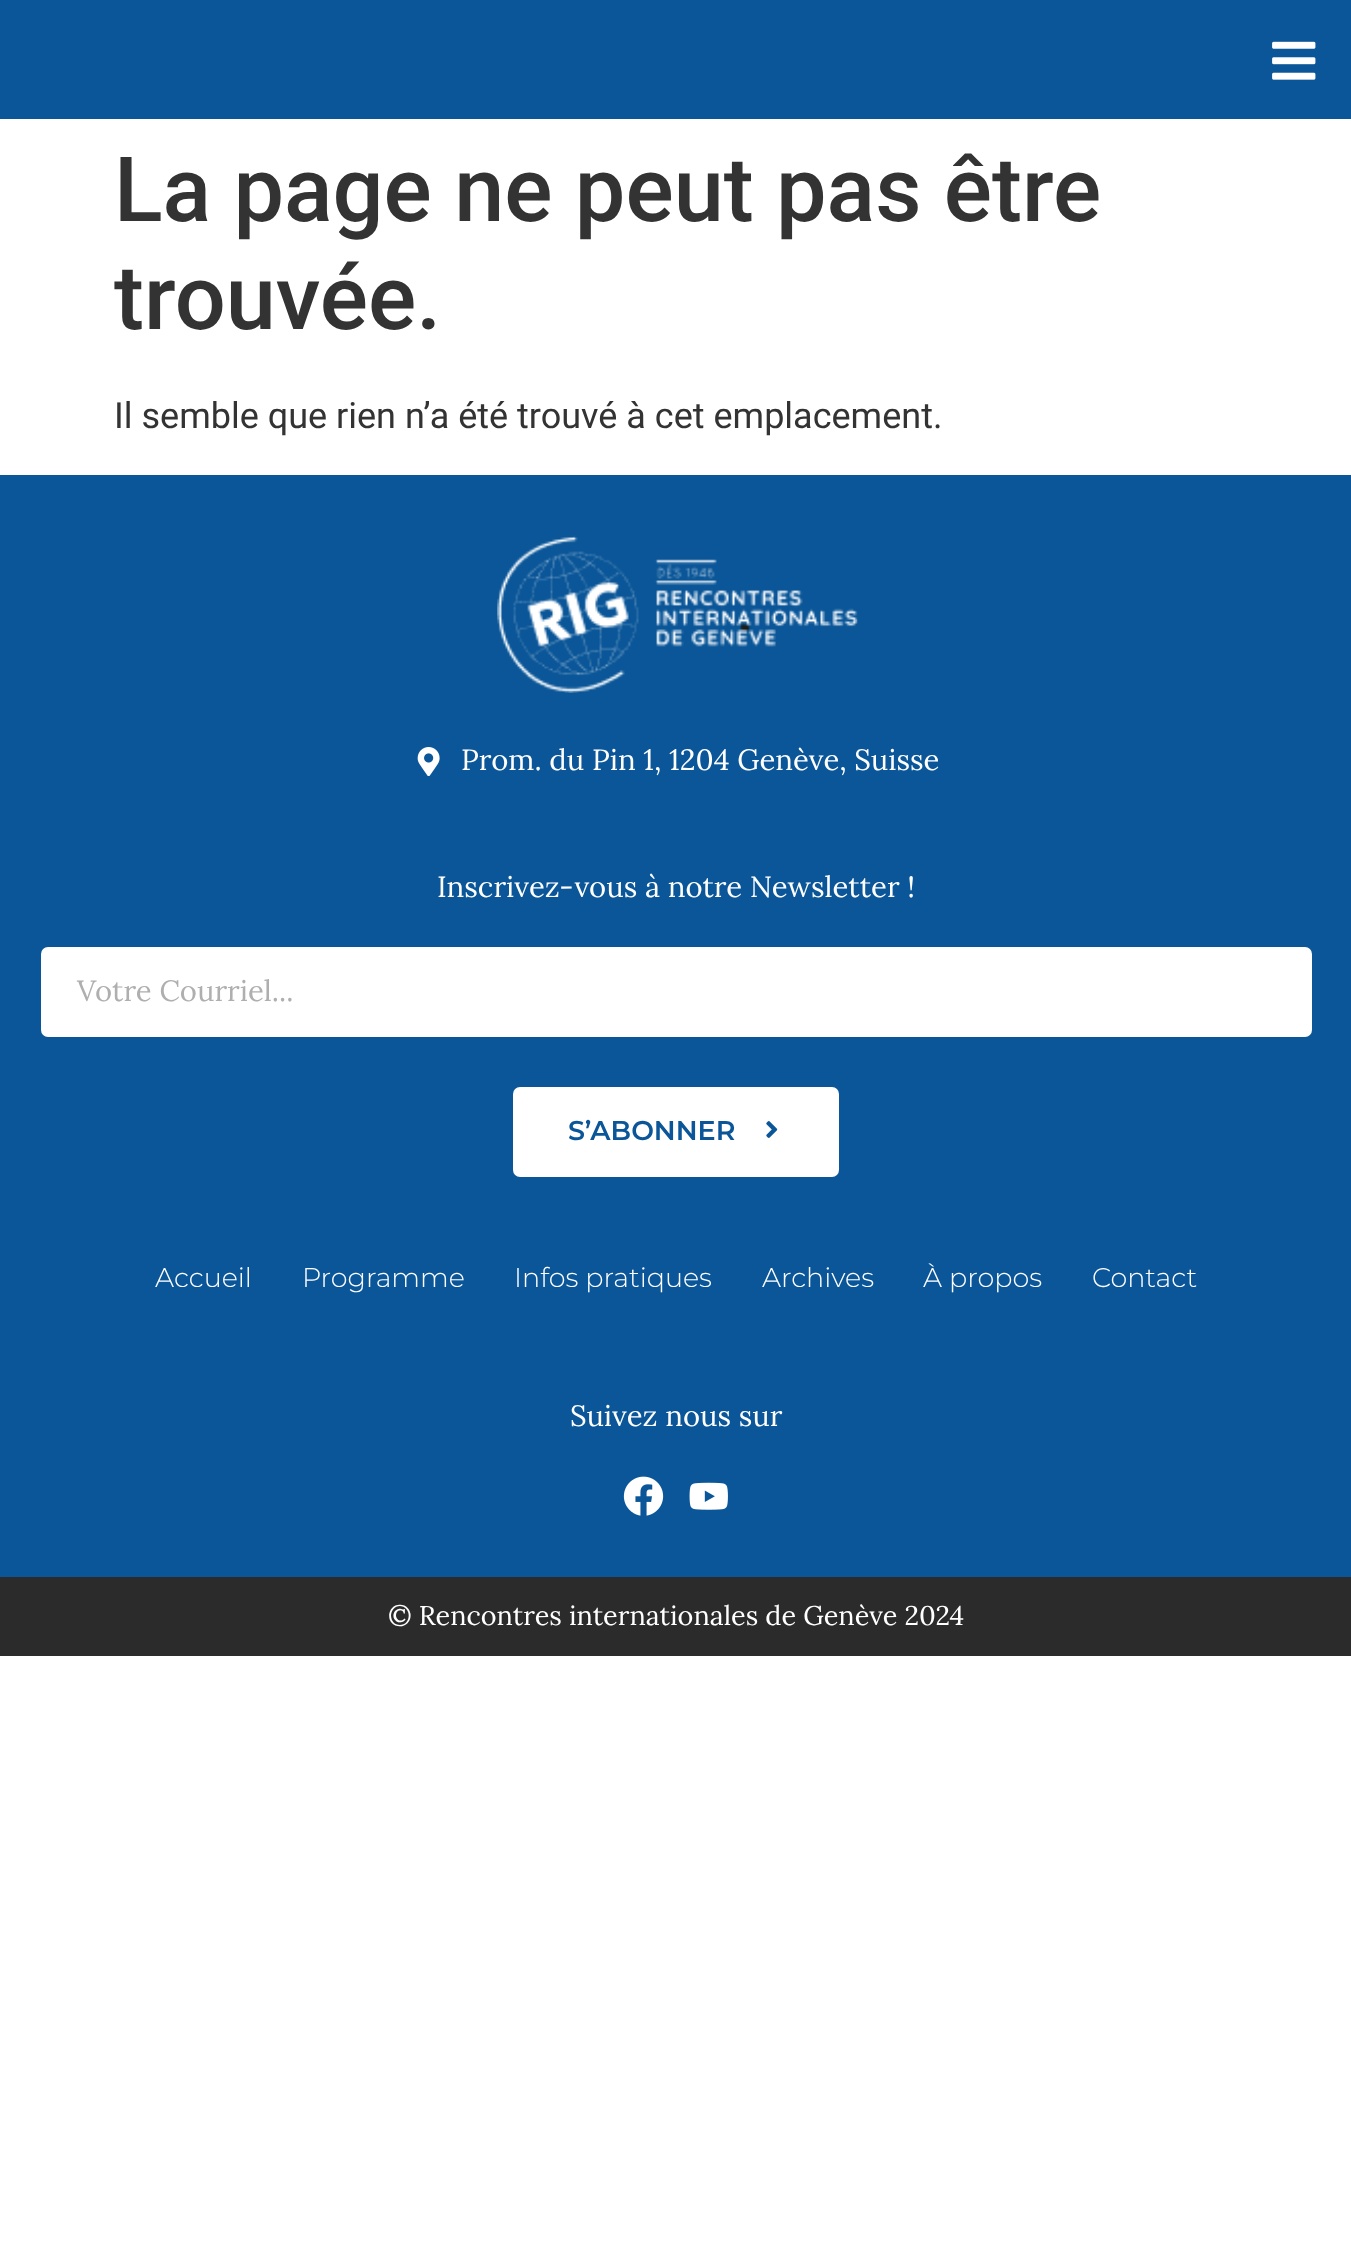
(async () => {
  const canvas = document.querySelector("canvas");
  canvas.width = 1351;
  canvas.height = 2242;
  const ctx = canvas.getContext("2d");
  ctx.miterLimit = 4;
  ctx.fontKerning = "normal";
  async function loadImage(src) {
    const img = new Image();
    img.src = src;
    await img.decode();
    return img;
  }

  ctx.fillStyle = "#ffffff";
  ctx.fillRect(0, 0, 1351, 2242);
  ctx.fillStyle = "#0a5698";
  ctx.fillRect(0, 0, 1351, 119);
  ctx.drawImage(await loadImage("img/1.png"), 1272, 41, 44, 39);
  ctx.fillRect(0, 475, 1351, 1102);
  ctx.drawImage(await loadImage("img/2.png"), 497, 535, 361, 158);
  ctx.drawImage(await loadImage("img/3.png"), 417, 747, 23, 29);
  ctx.fillStyle = "#ffffff";
  ctx.beginPath();
  ctx.roundRect(41, 947, 1271, 90, 7);
  ctx.fill();
  ctx.beginPath();
  ctx.roundRect(513, 1087, 326, 90, 7);
  ctx.fill();
  ctx.drawImage(await loadImage("img/4.png"), 766, 1121, 12, 17);
  ctx.drawImage(await loadImage("img/5.png"), 623, 1476, 41, 40);
  ctx.drawImage(await loadImage("img/6.png"), 689, 1482, 39, 28);
  ctx.fillStyle = "#2b2b2b";
  ctx.fillRect(0, 1577, 1351, 79);
  ctx.font = "500 90px Roboto";
  ctx.fillStyle = "#333333";
  ctx.fillText("La page ne peut pas être", 114, 221);
  ctx.fillText("trouvée.", 114, 329);
  ctx.font = "36px Roboto";
  ctx.fillText("Il semble que rien n’a été trouvé à cet emplacement.", 114, 428);
  ctx.font = "29.25px Lora";
  ctx.fillStyle = "#ffffff";
  ctx.fillText("Prom. du Pin 1, 1204 Genève, Suisse", 461, 770);
  ctx.fillText("Inscrivez-vous à notre Newsletter !", 437, 897);
  ctx.fillStyle = "#afafaf";
  ctx.fillText("Votre Courriel...", 77, 1001);
  ctx.font = "600 27px Montserrat";
  ctx.fillStyle = "#0a5698";
  ctx.fillText("S’ABONNER", 568, 1140);
  ctx.font = "300 27px Montserrat";
  ctx.fillStyle = "#ffffff";
  for (const [text, x, y] of [
    ["Accueil", 155, 1287],
    ["Programme", 302, 1287],
    ["Infos pratiques", 514, 1287],
    ["Archives", 762, 1287],
    ["À propos", 923, 1287],
    ["Contact", 1092, 1287],
  ]) {
    ctx.fillText(text, x, y);
  }
  ctx.font = "29.25px Lora";
  ctx.fillText("Suivez nous sur", 570, 1426);
  ctx.font = "27px Lora";
  ctx.fillText("© Rencontres internationales de Genève 2024", 388, 1625);
})();
